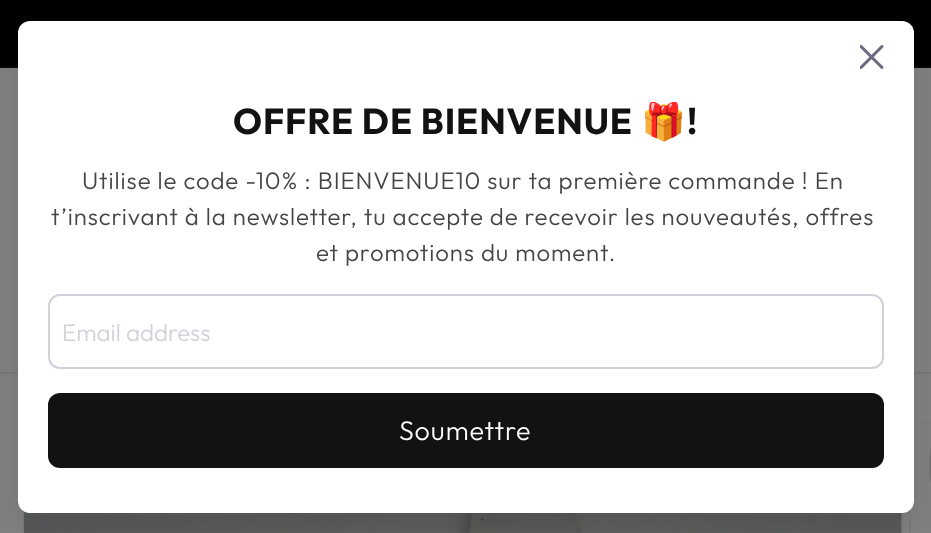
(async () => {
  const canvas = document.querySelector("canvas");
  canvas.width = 931;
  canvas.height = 533;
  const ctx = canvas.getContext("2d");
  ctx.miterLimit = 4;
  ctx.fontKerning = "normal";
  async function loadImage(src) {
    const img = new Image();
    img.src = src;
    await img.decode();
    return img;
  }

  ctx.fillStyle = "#808080";
  ctx.fillRect(0, 0, 931, 533);
  for (const [x, y, w, h, color] of [
    [0, 0, 931, 66, "#000000"],
    [0, 66, 931, 2, "#0a0a0a"],
    [0, 372, 931, 2, "#767676"],
  ]) {
    ctx.fillStyle = color;
    ctx.fillRect(x, y, w, h);
  }
  ctx.strokeStyle = "#7a7a7a";
  ctx.lineWidth = 2;
  ctx.strokeRect(24, 423, 878, 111);
  ctx.drawImage(await loadImage("img/2.png"), 24, 511, 878, 22);
  ctx.strokeRect(910, 423, 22, 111);
  ctx.fillStyle = "#808080";
  ctx.fillRect(911, 423, 20, 1);
  ctx.beginPath();
  ctx.roundRect(930, 442, 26, 46, 23);
  ctx.strokeStyle = "#747474";
  ctx.stroke();
  ctx.save();
  ctx.beginPath();
  ctx.rect(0, 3, 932, 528);
  ctx.clip();
  ctx.fillStyle = "rgba(18, 17, 39, 0.1)";
  ctx.filter = "blur(15px)";
  ctx.beginPath();
  ctx.roundRect(18, 33, 896, 492, 12);
  ctx.fill();
  ctx.filter = "none";
  ctx.restore();
  ctx.fillStyle = "#ffffff";
  ctx.beginPath();
  ctx.roundRect(18, 21, 896, 492, 12);
  ctx.fill();
  ctx.drawImage(await loadImage("img/1.png"), 860, 45, 24, 24);
  ctx.beginPath();
  ctx.roundRect(49, 295, 834, 73, 11);
  ctx.strokeStyle = "#d1d1db";
  ctx.stroke();
  ctx.fillStyle = "#121212";
  ctx.beginPath();
  ctx.roundRect(48, 393, 836, 75, 12);
  ctx.fill();
  ctx.letterSpacing = "0.9px";
  ctx.font = "bold 36px Outfit";
  ctx.fillText("OFFRE DE BIENVENUE", 233, 134);
  ctx.font = "bold 36px Noto Color Emoji";
  ctx.fillText("🎁", 641, 134);
  ctx.font = "bold 36px Outfit";
  ctx.fillText("!", 687, 134);
  ctx.font = "300 24px Outfit";
  ctx.fillStyle = "#454545";
  for (const [text, x, y] of [
    ["Utilise le code -10% : BIENVENUE10 sur ta première commande ! En", 82, 189],
    ["t’inscrivant à la newsletter, tu accepte de recevoir les nouveautés, offres", 51, 225],
    ["et promotions du moment.", 316, 261],
  ]) {
    ctx.fillText(text, x, y);
  }
  ctx.letterSpacing = "0px";
  ctx.fillStyle = "#d1d1db";
  ctx.fillText("Email address", 62, 341);
  ctx.letterSpacing = "0.9px";
  ctx.font = "300 27px Outfit";
  ctx.fillStyle = "#ffffff";
  ctx.fillText("Soumettre", 399, 440);
})();
